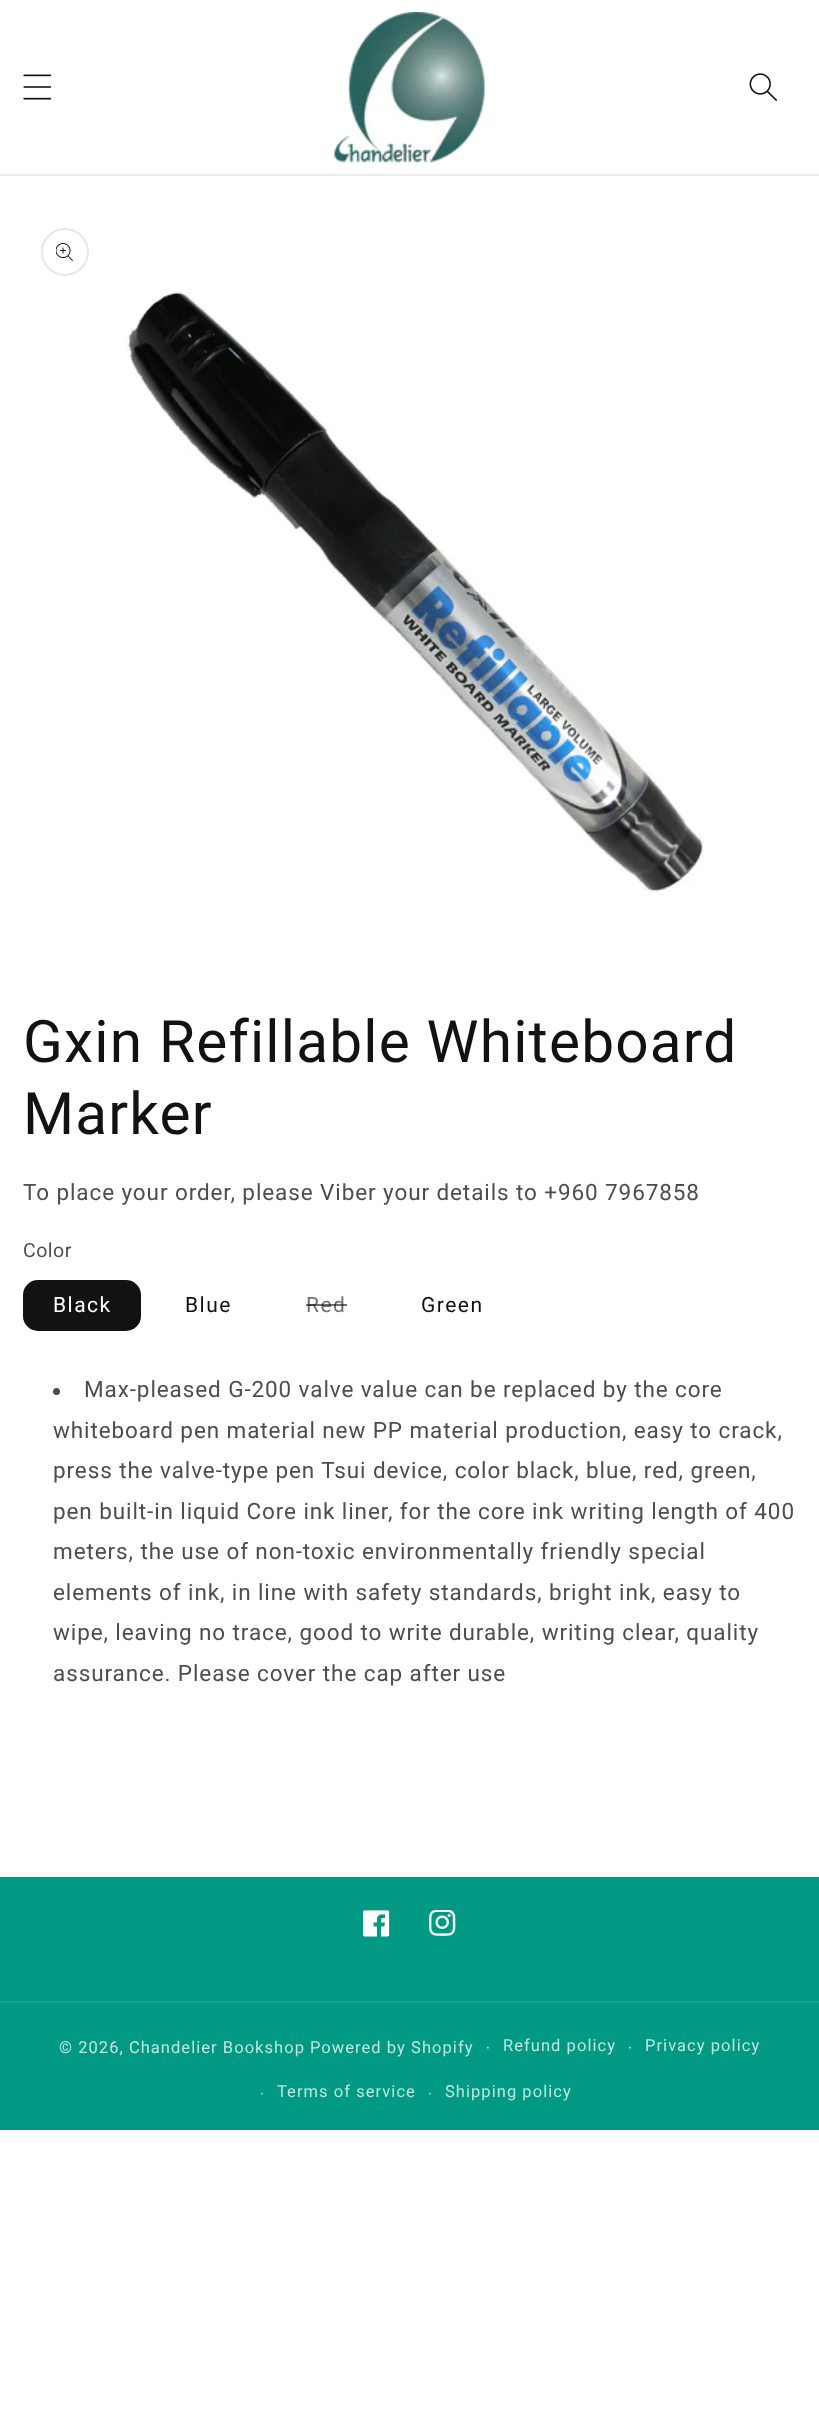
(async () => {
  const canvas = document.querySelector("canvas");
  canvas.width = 819;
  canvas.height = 2432;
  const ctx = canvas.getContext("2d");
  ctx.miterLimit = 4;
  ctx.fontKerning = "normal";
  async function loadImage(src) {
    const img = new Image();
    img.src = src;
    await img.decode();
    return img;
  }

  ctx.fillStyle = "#ffffff";
  ctx.fillRect(0, 0, 819, 2432);
  ctx.fillStyle = "#ececec";
  ctx.fillRect(0, 174, 819, 2);
  ctx.drawImage(await loadImage("img/1.png"), 23, 74, 29, 26);
  ctx.drawImage(await loadImage("img/2.png"), 334, 12, 151, 151);
  ctx.drawImage(await loadImage("img/3.png"), 749, 73, 28, 28);
  ctx.beginPath();
  ctx.arc(65, 252, 23, 0, Math.PI * 2);
  ctx.strokeStyle = "#e7e7e7";
  ctx.lineWidth = 2;
  ctx.stroke();
  ctx.drawImage(await loadImage("img/4.png"), 56, 243, 17, 18);
  ctx.drawImage(await loadImage("img/5.png"), 126, 292, 578, 600);
  ctx.fillStyle = "#121212";
  ctx.beginPath();
  ctx.roundRect(23, 1280, 118, 51, 15);
  ctx.fill();
  ctx.fillStyle = "#4d4d4d";
  ctx.beginPath();
  ctx.arc(56.5, 1391.5, 3.5, 0, Math.PI * 2);
  ctx.fill();
  ctx.fillStyle = "#009984";
  ctx.fillRect(0, 1877, 819, 253);
  ctx.drawImage(await loadImage("img/6.png"), 363, 1910, 27, 27);
  ctx.drawImage(await loadImage("img/7.png"), 429, 1910, 27, 26);
  ctx.fillStyle = "#14a18e";
  ctx.fillRect(0, 2001, 819, 2);
  ctx.letterSpacing = "1.2px";
  ctx.font = "58.5px Roboto";
  ctx.fillStyle = "#121212";
  ctx.fillText("Gxin Refillable Whiteboard", 23, 1062);
  ctx.fillText("Marker", 23, 1134);
  ctx.letterSpacing = "0.9px";
  ctx.font = "22.5px Roboto";
  ctx.fillStyle = "#4d4d4d";
  ctx.fillText("To place your order, please Viber your details to +960 7967858", 23, 1200);
  ctx.letterSpacing = "0.5px";
  ctx.font = "19.5px Roboto";
  ctx.fillText("Color", 23, 1257);
  ctx.letterSpacing = "1.5px";
  ctx.font = "21px Roboto";
  ctx.fillStyle = "#ffffff";
  ctx.fillText("Black", 53, 1312);
  ctx.fillStyle = "#121212";
  ctx.fillText("Blue", 185, 1312);
  ctx.fillStyle = "#717171";
  ctx.fillText("Red", 306, 1312);
  ctx.fillStyle = "rgba(18, 18, 18, 0.6)";
  ctx.fillRect(306, 1304, 41, 2);
  ctx.fillStyle = "#121212";
  ctx.fillText("Green", 421, 1312);
  ctx.letterSpacing = "0.9px";
  ctx.font = "22.5px Roboto";
  ctx.fillStyle = "#4d4d4d";
  for (const [text, x, y] of [
    ["Max-pleased G-200 valve value can be replaced by the core", 84, 1397],
    ["whiteboard pen material new PP material production, easy to crack,", 53, 1438],
    ["press the valve-type pen Tsui device, color black, blue, red, green,", 53, 1478],
    ["pen built-in liquid Core ink liner, for the core ink writing length of 400", 53, 1519],
    ["meters, the use of non-toxic environmentally friendly special", 53, 1559],
    ["elements of ink, in line with safety standards, bright ink, easy to", 53, 1600],
    ["wipe, leaving no trace, good to write durable, writing clear, quality", 53, 1640],
    ["assurance. Please cover the cap after use", 53, 1681],
  ]) {
    ctx.fillText(text, x, y);
  }
  ctx.letterSpacing = "1.05px";
  ctx.font = "16.5px Roboto";
  ctx.fillStyle = "#bfe6e0";
  ctx.fillText("© 2026, Chandelier Bookshop", 59, 2053);
  ctx.font = "15px Roboto";
  ctx.fillText("·", 486, 2053);
  ctx.font = "16.5px Roboto";
  ctx.fillText("Refund policy", 503, 2051);
  ctx.font = "15px Roboto";
  ctx.fillText("·", 628, 2053);
  ctx.font = "16.5px Roboto";
  ctx.fillText("Privacy policy", 645, 2051);
  ctx.font = "15px Roboto";
  ctx.fillText("·", 260, 2099);
  ctx.font = "16.5px Roboto";
  ctx.fillText("Terms of service", 277, 2097);
  ctx.font = "15px Roboto";
  ctx.fillText("·", 428, 2099);
  ctx.font = "16.5px Roboto";
  ctx.fillText("Shipping policy", 445, 2097);
  ctx.fillText("Powered by Shopify", 310, 2053);
})();
